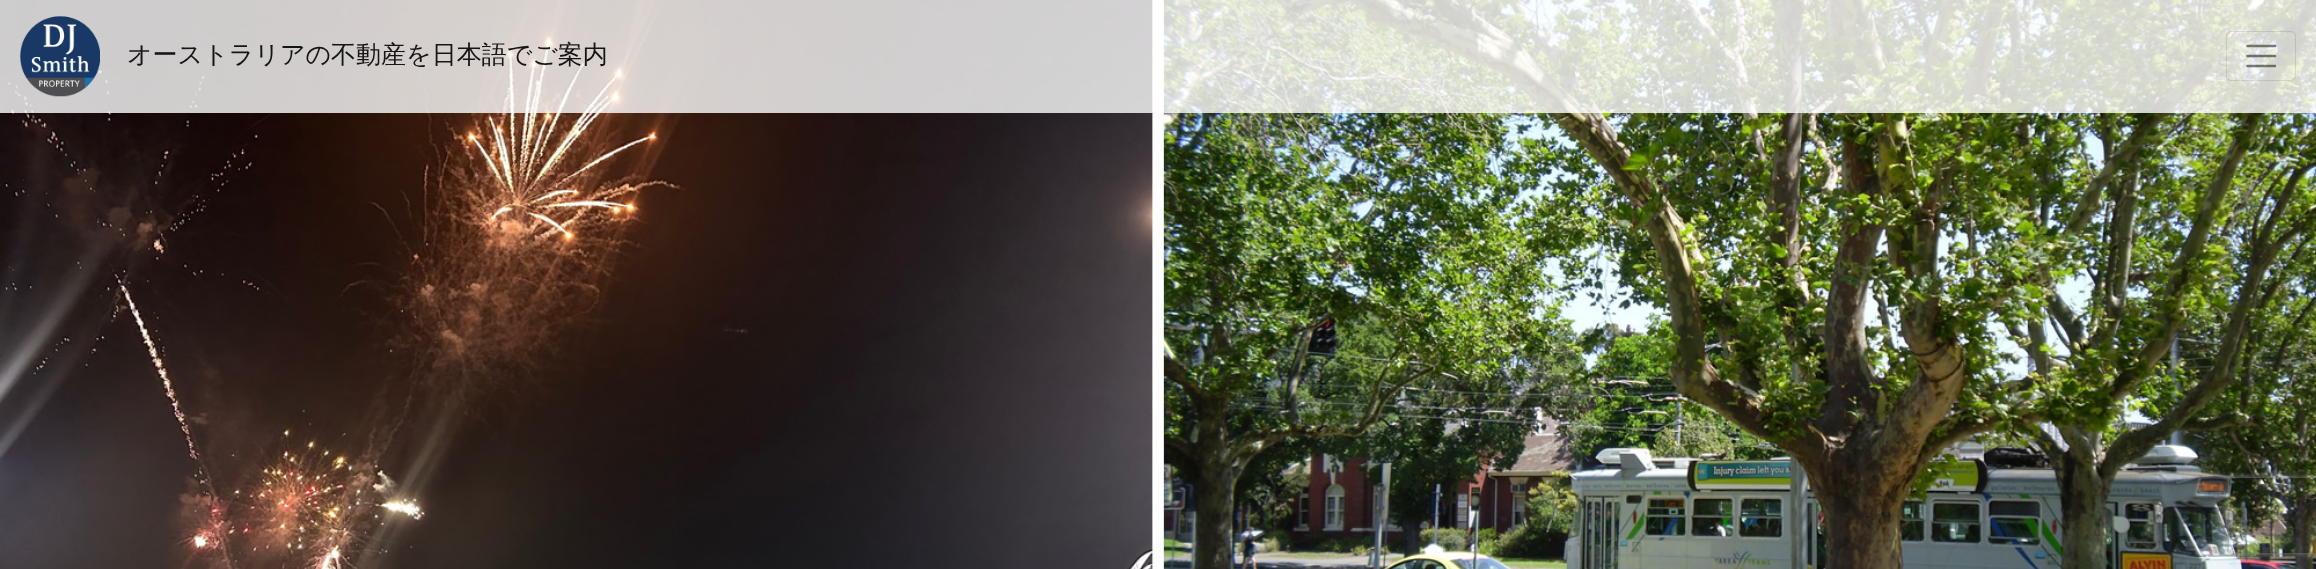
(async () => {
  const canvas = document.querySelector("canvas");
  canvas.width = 2316;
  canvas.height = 569;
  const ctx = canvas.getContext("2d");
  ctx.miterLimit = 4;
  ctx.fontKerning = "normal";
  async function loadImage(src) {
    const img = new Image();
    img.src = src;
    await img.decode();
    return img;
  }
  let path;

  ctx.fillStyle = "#ffffff";
  ctx.fillRect(0, 0, 2316, 569);
  ctx.drawImage(await loadImage("img/1.png"), 0, 0, 2316, 569);
  ctx.fillStyle = "rgba(255, 255, 255, 0.8)";
  ctx.fillRect(0, 0, 2316, 113);
  ctx.drawImage(await loadImage("img/2.png"), 20, 16, 80, 81);
  ctx.beginPath();
  ctx.roundRect(2226.5, 31.5, 69, 49, 4.5);
  ctx.strokeStyle = "rgba(0, 0, 0, 0.1)";
  ctx.stroke();
  path = new Path2D("M2247.5 46H2275M2247.5 56H2275M2247.5 66H2275");
  ctx.strokeStyle = "rgba(0, 0, 0, 0.5)";
  ctx.lineWidth = 2.5;
  ctx.lineCap = "round";
  ctx.stroke(path);
  ctx.save();
  path = new Path2D("M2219 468H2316V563H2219ZM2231.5 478H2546.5C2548 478 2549 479 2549 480.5V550.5C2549 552 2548 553 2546.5 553H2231.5C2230 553 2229 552 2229 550.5V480.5C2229 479 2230 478 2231.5 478Z");
  ctx.clip(path, "evenodd");
  ctx.fillStyle = "#808080";
  ctx.filter = "blur(3px)";
  ctx.beginPath();
  ctx.roundRect(2229, 478, 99, 75, 2.5);
  ctx.fill();
  ctx.filter = "none";
  ctx.restore();
  ctx.font = "500 25px WenQuanYi Zen Hei";
  ctx.fillStyle = "#151515";
  ctx.fillText("オーストラリアの不動産を日本語でご案内", 127, 63);
})();
